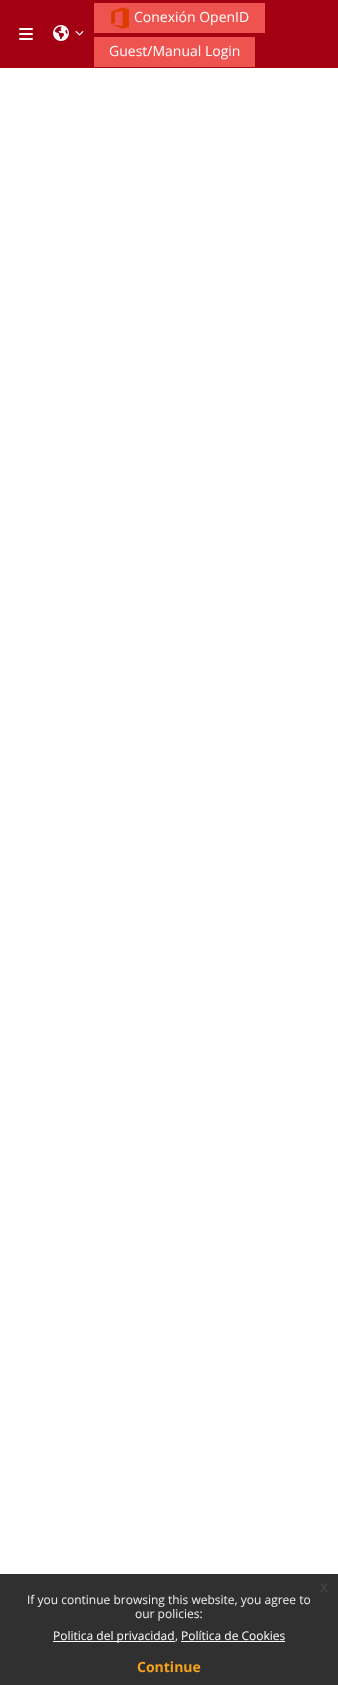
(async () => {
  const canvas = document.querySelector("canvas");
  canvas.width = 338;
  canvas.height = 1685;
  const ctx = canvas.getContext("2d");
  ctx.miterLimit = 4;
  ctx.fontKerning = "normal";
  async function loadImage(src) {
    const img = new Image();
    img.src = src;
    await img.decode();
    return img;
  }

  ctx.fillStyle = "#ffffff";
  ctx.fillRect(0, 0, 338, 1685);
  ctx.fillStyle = "#a30013";
  ctx.fillRect(0, 0, 338, 68);
  ctx.drawImage(await loadImage("img/1.png"), 19, 28, 14, 12);
  ctx.drawImage(await loadImage("img/2.png"), 53, 25, 16, 16);
  ctx.drawImage(await loadImage("img/3.png"), 75, 31, 9, 5);
  ctx.fillStyle = "#ef5350";
  ctx.fillRect(94, 3, 171, 30);
  ctx.drawImage(await loadImage("img/4.png"), 111, 7, 18, 22);
  for (const [x, y, w, h, color] of [
    [94, 37, 161, 30, "#ef5350"],
    [0, 1574, 338, 111, "#303030"],
    [53, 1641, 122, 1, "#ffffff"],
    [181, 1641, 104, 1, "#ffffff"],
  ]) {
    ctx.fillStyle = color;
    ctx.fillRect(x, y, w, h);
  }
  ctx.font = "14px Open Sans";
  ctx.fillText("Conexión OpenID", 134, 22);
  ctx.fillText("Guest/Manual Login", 109, 56);
  ctx.font = "16px Liberation Sans";
  ctx.fillStyle = "#474747";
  ctx.fillText("x", 320, 1592);
  ctx.font = "12px Open Sans";
  ctx.fillStyle = "#efefef";
  ctx.fillText("If you continue browsing this website, you agree to", 27, 1604);
  ctx.fillText("our policies:", 135, 1618);
  ctx.fillStyle = "#ffffff";
  ctx.fillText("Politica del privacidad", 53, 1640);
  ctx.fillStyle = "#efefef";
  ctx.fillText(",", 175, 1640);
  ctx.fillStyle = "#ffffff";
  ctx.fillText("Política de Cookies", 181, 1640);
  ctx.font = "bold 14px Open Sans";
  ctx.fillStyle = "#f6a21d";
  ctx.fillText("Continue", 137, 1672);
})();
